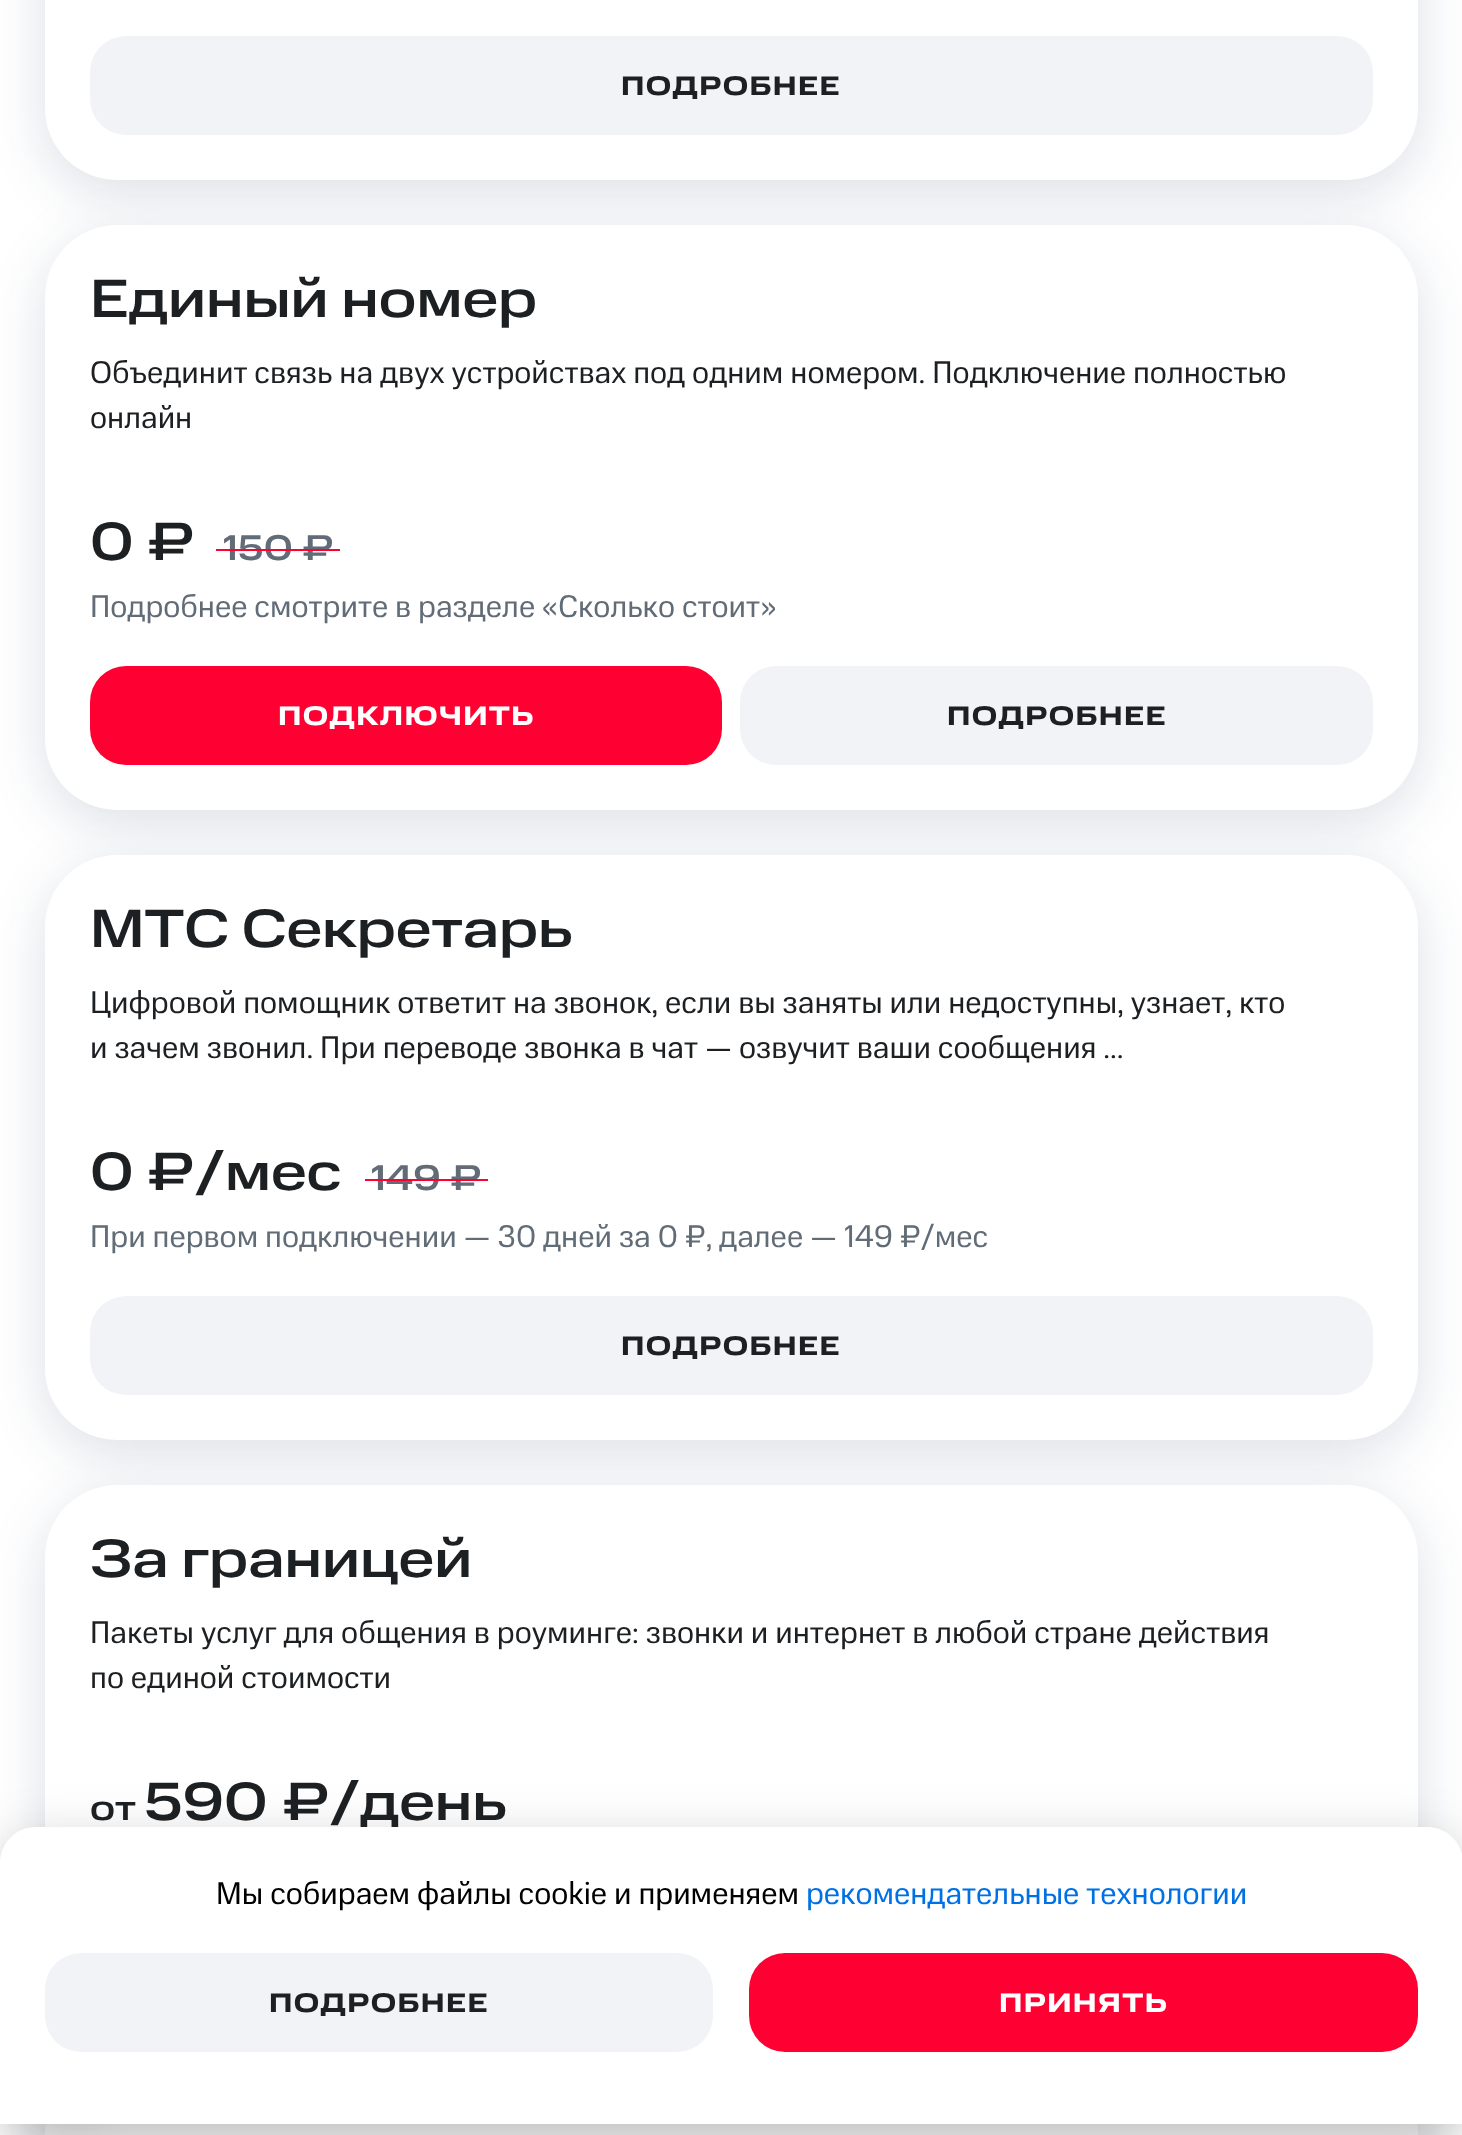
(async () => {
  const canvas = document.querySelector("canvas");
  canvas.width = 1462;
  canvas.height = 2135;
  const ctx = canvas.getContext("2d");
  ctx.miterLimit = 4;
  ctx.fontKerning = "none";
  let path;

  ctx.fillStyle = "#ffffff";
  ctx.fillRect(0, 0, 1462, 2135);
  ctx.fillStyle = "rgba(15, 34, 79, 0.14)";
  ctx.filter = "blur(27px)";
  ctx.beginPath();
  ctx.roundRect(45, -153, 1373, 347, 72);
  ctx.fill();
  ctx.filter = "none";
  ctx.fillStyle = "#ffffff";
  ctx.beginPath();
  ctx.roundRect(45, -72, 1373, 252, 72);
  ctx.fill();
  ctx.fillStyle = "#f2f3f7";
  ctx.beginPath();
  ctx.roundRect(90, 36, 1283, 99, 36);
  ctx.fill();
  ctx.fillStyle = "rgba(15, 34, 79, 0.14)";
  ctx.filter = "blur(27px)";
  ctx.beginPath();
  ctx.roundRect(45, 239, 1373, 585, 72);
  ctx.fill();
  ctx.filter = "none";
  ctx.fillStyle = "#ffffff";
  ctx.beginPath();
  ctx.roundRect(45, 225, 1373, 585, 72);
  ctx.fill();
  ctx.fillStyle = "#ff0032";
  ctx.beginPath();
  ctx.roundRect(90, 666, 632, 99, 36);
  ctx.fill();
  ctx.fillStyle = "#f2f3f7";
  ctx.beginPath();
  ctx.roundRect(740, 666, 633, 99, 36);
  ctx.fill();
  ctx.fillStyle = "rgba(15, 34, 79, 0.14)";
  ctx.filter = "blur(27px)";
  ctx.beginPath();
  ctx.roundRect(45, 869, 1373, 585, 72);
  ctx.fill();
  ctx.filter = "none";
  ctx.fillStyle = "#ffffff";
  ctx.beginPath();
  ctx.roundRect(45, 855, 1373, 585, 72);
  ctx.fill();
  ctx.fillStyle = "#f2f3f7";
  ctx.beginPath();
  ctx.roundRect(90, 1296, 1283, 99, 36);
  ctx.fill();
  ctx.fillStyle = "rgba(15, 34, 79, 0.14)";
  ctx.filter = "blur(27px)";
  ctx.beginPath();
  ctx.roundRect(45, 1499, 1373, 531, 72);
  ctx.fill();
  ctx.filter = "none";
  ctx.fillStyle = "#ffffff";
  ctx.beginPath();
  ctx.roundRect(45, 1485, 1373, 531, 72);
  ctx.fill();
  ctx.fillStyle = "rgba(15, 34, 79, 0.14)";
  ctx.filter = "blur(27px)";
  ctx.beginPath();
  ctx.roundRect(45, 2075, 1373, 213, 72);
  ctx.fill();
  ctx.filter = "none";
  ctx.fillStyle = "#ffffff";
  ctx.beginPath();
  ctx.roundRect(45, 2061, 1373, 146, 72);
  ctx.fill();
  ctx.fillStyle = "rgba(0, 0, 0, 0.08)";
  ctx.filter = "blur(18px)";
  ctx.beginPath();
  ctx.roundRect(23, 2023, 99, 99, 49.5);
  ctx.fill();
  ctx.filter = "none";
  ctx.fillStyle = "rgba(0, 0, 0, 0.14)";
  ctx.filter = "blur(22.5px)";
  ctx.beginPath();
  ctx.roundRect(0, 1854, 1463, 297, 36);
  ctx.fill();
  ctx.filter = "none";
  ctx.fillStyle = "rgba(0, 0, 0, 0.12)";
  ctx.filter = "blur(27px)";
  ctx.beginPath();
  ctx.roundRect(0, 1836, 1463, 297, 36);
  ctx.fill();
  ctx.filter = "none";
  ctx.letterSpacing = "1.4px";
  ctx.font = "bold 27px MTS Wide";
  ctx.fillStyle = "#1d2023";
  ctx.fillText("ПОДРОБНЕЕ", 621, 95);
  ctx.letterSpacing = "0px";
  ctx.font = "500 54px MTS Wide";
  ctx.fillText("Единый номер", 90, 317);
  ctx.font = "31.5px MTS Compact";
  ctx.fillText("Объединит связь на двух устройствах под одним номером. Подключение полностью", 90, 383);
  ctx.fillText("онлайн", 90, 428);
  ctx.font = "500 54px MTS Wide";
  ctx.fillText("0", 90, 560);
  ctx.fillText("₽", 147, 560);
  ctx.font = "500 36px MTS Wide";
  ctx.fillStyle = "#626c77";
  ctx.fillText("150", 223, 560);
  ctx.fillText("₽", 302, 560);
  ctx.fillStyle = "#ff0032";
  ctx.fillRect(216, 549, 124, 2);
  ctx.font = "31.5px MTS Compact";
  ctx.fillStyle = "#626c77";
  ctx.fillText("Подробнее смотрите в разделе «Сколько стоит»", 90, 617);
  ctx.letterSpacing = "1.4px";
  ctx.font = "bold 27px MTS Wide";
  ctx.fillStyle = "#ffffff";
  ctx.fillText("ПОДКЛЮЧИТЬ", 278, 725);
  ctx.fillStyle = "#1d2023";
  ctx.fillText("ПОДРОБНЕЕ", 947, 725);
  ctx.letterSpacing = "0px";
  ctx.font = "500 54px MTS Wide";
  ctx.fillText("МТС Секретарь", 90, 947);
  ctx.font = "31.5px MTS Compact";
  ctx.fillText("Цифровой помощник ответит на звонок, если вы заняты или недоступны, узнает,", 90, 1013);
  ctx.fillText("кто", 1239, 1013);
  ctx.fillText("и зачем звонил. При переводе звонка в чат — озвучит ваши сообщения ...", 90, 1058);
  ctx.font = "500 54px MTS Wide";
  ctx.fillText("0", 90, 1190);
  ctx.fillText("₽/мес", 147, 1190);
  ctx.font = "500 36px MTS Wide";
  ctx.fillStyle = "#626c77";
  ctx.fillText("149", 371, 1190);
  ctx.fillText("₽", 450, 1190);
  ctx.fillStyle = "#ff0032";
  ctx.fillRect(365, 1179, 123, 2);
  ctx.font = "31.5px MTS Compact";
  ctx.fillStyle = "#626c77";
  ctx.fillText("При первом подключении — 30 дней за 0 ₽, далее — 149 ₽/мес", 90, 1247);
  ctx.letterSpacing = "1.4px";
  ctx.font = "bold 27px MTS Wide";
  ctx.fillStyle = "#1d2023";
  ctx.fillText("ПОДРОБНЕЕ", 621, 1355);
  ctx.letterSpacing = "0px";
  ctx.font = "500 54px MTS Wide";
  ctx.fillText("За границей", 90, 1577);
  ctx.font = "31.5px MTS Compact";
  ctx.fillText("Пакеты услуг для общения в роуминге: звонки и интернет в любой стране действия", 90, 1643);
  ctx.fillText("по единой стоимости", 90, 1688);
  ctx.font = "500 36px MTS Wide";
  ctx.fillText("от", 90, 1820);
  ctx.font = "500 54px MTS Wide";
  ctx.fillText("590", 144, 1820);
  ctx.fillText("₽/день", 282, 1820);
  ctx.fillStyle = "#ffffff";
  path = new Path2D("M36 1827H1427C1447 1827 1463 1843 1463 1863V2124H0V1863C0 1843 16 1827 36 1827Z");
  ctx.fill(path);
  ctx.font = "31.5px MTS Compact";
  ctx.fillStyle = "#000000";
  ctx.fillText("Мы собираем файлы cookie и применяем", 216, 1904);
  ctx.fillStyle = "#0070e5";
  ctx.fillText("рекомендательные технологии", 806, 1904);
  ctx.fillStyle = "#f2f3f7";
  ctx.beginPath();
  ctx.roundRect(45, 1953, 668, 99, 36);
  ctx.fill();
  ctx.letterSpacing = "1.4px";
  ctx.font = "bold 27px MTS Wide";
  ctx.fillStyle = "#1d2023";
  ctx.fillText("ПОДРОБНЕЕ", 269, 2012);
  ctx.fillStyle = "#ff0032";
  ctx.beginPath();
  ctx.roundRect(749, 1953, 669, 99, 36);
  ctx.fill();
  ctx.fillStyle = "#ffffff";
  ctx.fillText("ПРИНЯТЬ", 999, 2012);
})();
